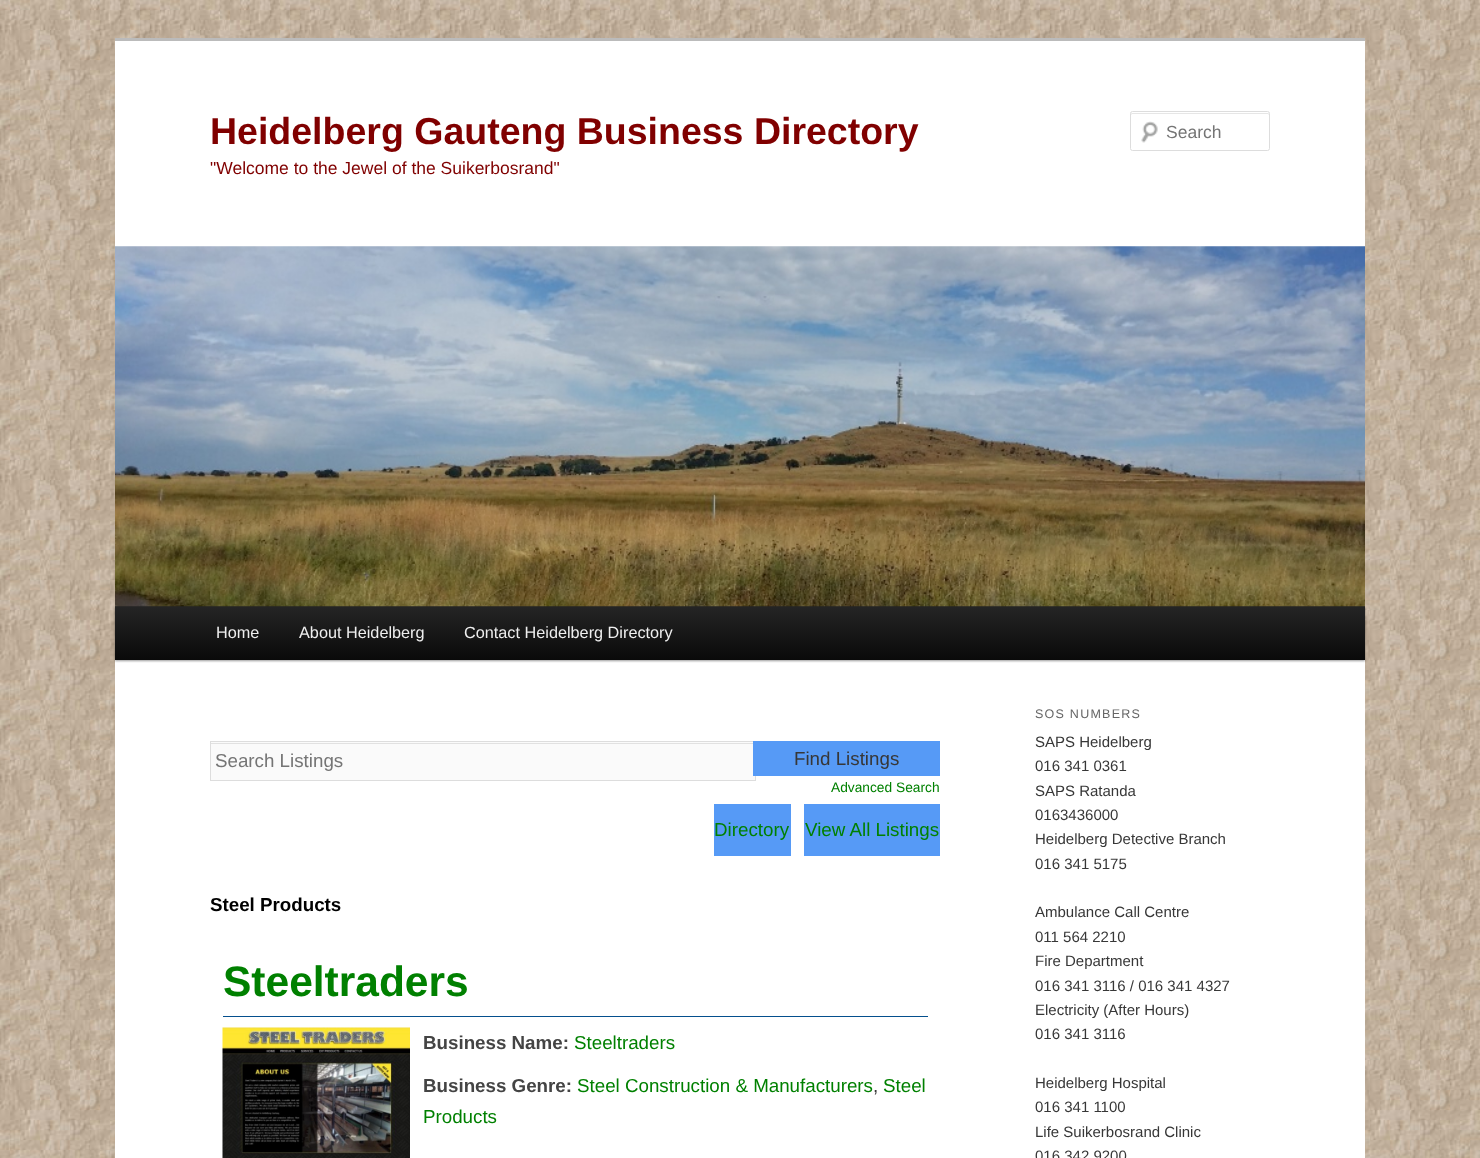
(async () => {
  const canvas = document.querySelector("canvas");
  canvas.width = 1480;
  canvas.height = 1158;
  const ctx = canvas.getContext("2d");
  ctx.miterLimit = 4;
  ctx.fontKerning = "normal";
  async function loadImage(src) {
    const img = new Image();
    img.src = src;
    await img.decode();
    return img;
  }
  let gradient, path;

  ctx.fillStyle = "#ffffff";
  ctx.fillRect(0, 0, 1480, 1158);
  ctx.drawImage(await loadImage("img/1.png"), 0, 0, 1480, 1158);
  ctx.fillRect(115, 41, 1250, 1117);
  ctx.fillStyle = "#bbbbbb";
  ctx.fillRect(115, 38, 1250, 3);
  ctx.drawImage(await loadImage("img/2.png"), 1141, 121, 17, 22);
  ctx.fillStyle = "#e6e6e6";
  path = new Path2D("M1132 114H1268L1269 115C1269 114 1269 113 1268 113H1132C1131 113 1131 114 1131 115Z");
  ctx.fill(path);
  ctx.beginPath();
  ctx.roundRect(1130.5, 111.5, 139, 39, 2);
  ctx.strokeStyle = "#dddddd";
  ctx.stroke();
  ctx.fillStyle = "rgba(0, 0, 0, 0.4)";
  ctx.filter = "blur(1px)";
  ctx.beginPath();
  ctx.rect(115, 608, 1250, 53);
  ctx.fill();
  ctx.filter = "none";
  gradient = ctx.createLinearGradient(740, 606, 740, 660);
  gradient.addColorStop(0, "#252525");
  gradient.addColorStop(1, "#0a0a0a");
  ctx.fillStyle = gradient;
  ctx.fillRect(115, 606, 1250, 54);
  ctx.drawImage(await loadImage("img/3.png"), 115, 246, 1250, 361);
  ctx.fillStyle = "#fafafa";
  ctx.fillRect(211, 742, 544, 38);
  ctx.fillStyle = "#e1e1e1";
  ctx.fillRect(211, 743, 544, 1);
  ctx.strokeRect(210.5, 741.5, 545, 39);
  for (const [x, y, w, h, color] of [
    [753, 741, 187, 35, "#569af6"],
    [714, 804, 77, 52, "#569af6"],
    [804, 804, 136, 52, "#569af6"],
    [223, 1016, 705, 1, "#044f8d"],
  ]) {
    ctx.fillStyle = color;
    ctx.fillRect(x, y, w, h);
  }
  ctx.drawImage(await loadImage("img/4.png"), 222, 1027, 188, 131);
  ctx.font = "bold 37.5px Liberation Sans";
  ctx.fillStyle = "#800000";
  ctx.fillText("Heidelberg Gauteng Business Directory", 210, 144);
  ctx.font = "17.5px Liberation Sans";
  ctx.fillText("\"Welcome to the Jewel of the Suikerbosrand\"", 210, 174);
  ctx.fillStyle = "#757575";
  ctx.fillText("Search", 1166, 138);
  ctx.font = "16.25px Liberation Sans";
  ctx.fillStyle = "#eeeeee";
  for (const [text, x, y] of [
    ["Home", 216, 638],
    ["About Heidelberg", 299, 638],
    ["Contact Heidelberg Directory", 464, 638],
  ]) {
    ctx.fillText(text, x, y);
  }
  ctx.font = "18.75px Liberation Sans";
  ctx.fillStyle = "#757575";
  ctx.fillText("Search Listings", 215, 767);
  ctx.fillStyle = "#373737";
  ctx.fillText("Find Listings", 794, 765);
  ctx.font = "13.75px Liberation Sans";
  ctx.fillStyle = "#008000";
  ctx.fillText("Advanced Search", 831, 792);
  ctx.font = "18.75px Liberation Sans";
  ctx.fillText("Directory", 714, 836);
  ctx.fillText("View All Listings", 805, 836);
  ctx.font = "bold 18.75px Liberation Sans";
  ctx.fillStyle = "#000000";
  ctx.fillText("Steel Products", 210, 911);
  ctx.font = "bold 42.5px Liberation Sans";
  ctx.fillStyle = "#008000";
  ctx.fillText("Steeltraders", 223, 996);
  ctx.font = "bold 18.75px Liberation Sans";
  ctx.fillStyle = "#444444";
  ctx.fillText("Business Name:", 423, 1049);
  ctx.font = "18.75px Liberation Sans";
  ctx.fillStyle = "#008000";
  ctx.fillText("Steeltraders", 574, 1049);
  ctx.font = "bold 18.75px Liberation Sans";
  ctx.fillStyle = "#444444";
  ctx.fillText("Business Genre:", 423, 1092);
  ctx.font = "18.75px Liberation Sans";
  ctx.fillStyle = "#008000";
  ctx.fillText("Steel Construction & Manufacturers", 577, 1092);
  ctx.fillStyle = "#373737";
  ctx.fillText(",", 873, 1092);
  ctx.fillStyle = "#008000";
  ctx.fillText("Steel", 883, 1092);
  ctx.fillText("Products", 423, 1123);
  ctx.letterSpacing = "1.25px";
  ctx.font = "12.5px Liberation Sans";
  ctx.fillStyle = "#666666";
  ctx.fillText("SOS NUMBERS", 1035, 718);
  ctx.letterSpacing = "0px";
  ctx.font = "15px Liberation Sans";
  ctx.fillStyle = "#373737";
  for (const [text, x, y] of [
    ["SAPS Heidelberg", 1035, 747],
    ["016 341 0361", 1035, 771],
    ["SAPS Ratanda", 1035, 796],
    ["0163436000", 1035, 820],
    ["Heidelberg Detective Branch", 1035, 844],
    ["016 341 5175", 1035, 869],
    ["Ambulance Call Centre", 1035, 917],
    ["011 564 2210", 1035, 942],
    ["Fire Department", 1035, 966],
    ["016 341 3116 / 016 341 4327", 1035, 991],
    ["Electricity (After Hours)", 1035, 1015],
    ["016 341 3116", 1035, 1039],
    ["Heidelberg Hospital", 1035, 1088],
    ["016 341 1100", 1035, 1112],
    ["Life Suikerbosrand Clinic", 1035, 1137],
    ["016 342 9200", 1035, 1161],
  ]) {
    ctx.fillText(text, x, y);
  }
})();
